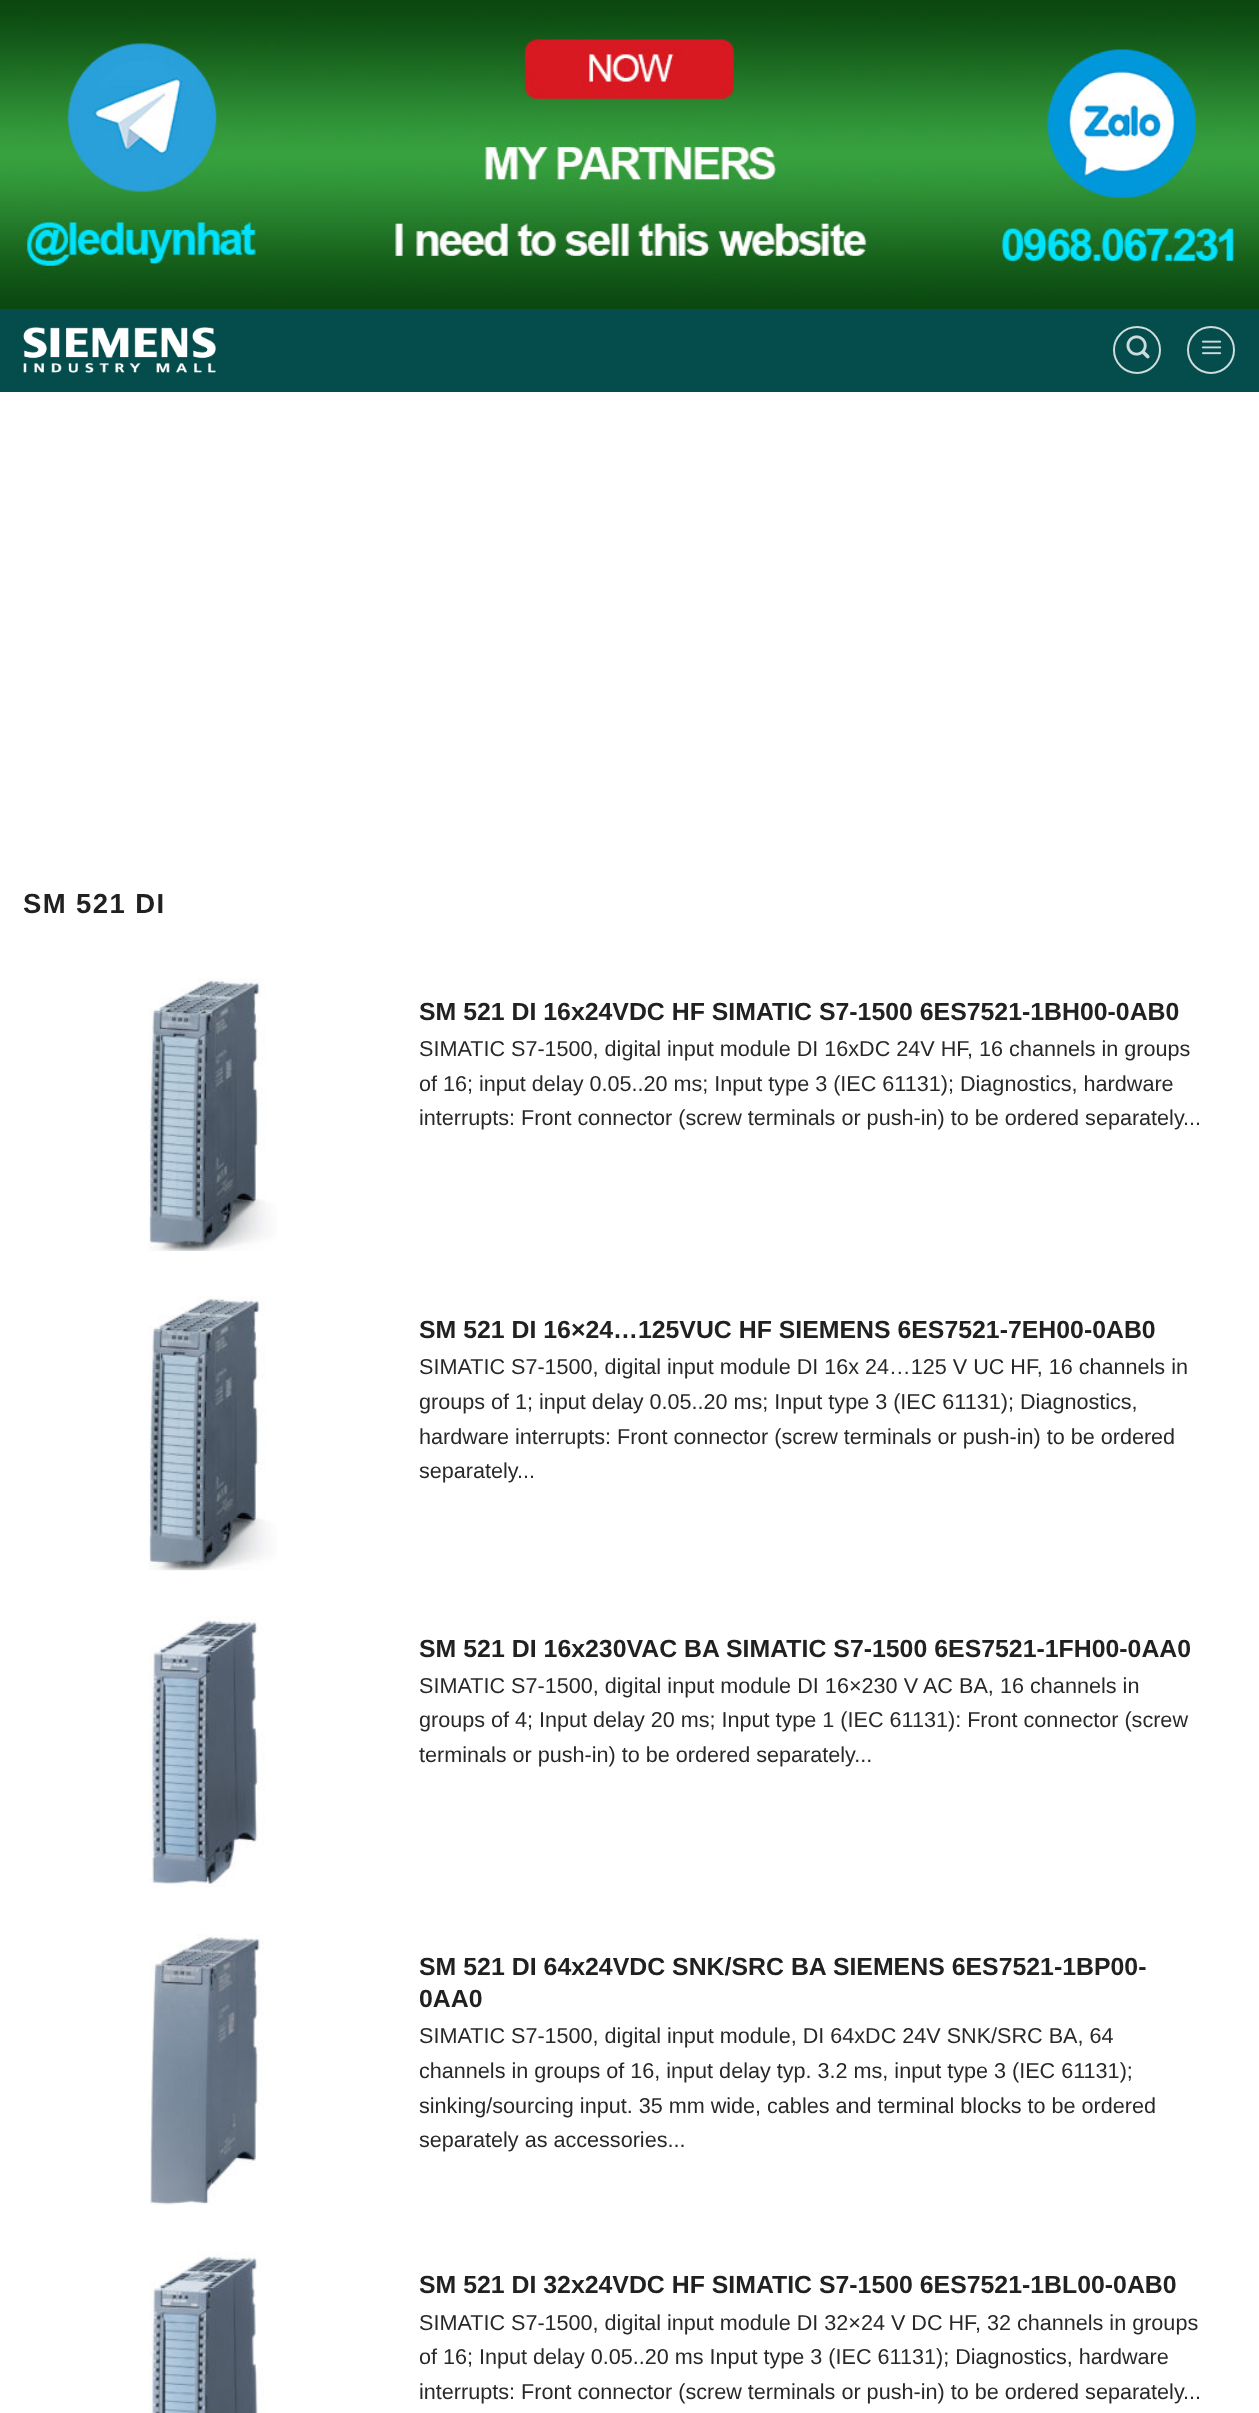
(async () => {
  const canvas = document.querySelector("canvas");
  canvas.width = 1259;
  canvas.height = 2413;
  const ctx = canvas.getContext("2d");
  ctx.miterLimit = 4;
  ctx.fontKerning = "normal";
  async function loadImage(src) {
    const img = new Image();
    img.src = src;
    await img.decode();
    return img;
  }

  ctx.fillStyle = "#ffffff";
  ctx.fillRect(0, 0, 1259, 2413);
  ctx.drawImage(await loadImage("img/1.png"), 0, 0, 1259, 309);
  ctx.fillStyle = "#054d4d";
  ctx.fillRect(0, 309, 1259, 83);
  ctx.drawImage(await loadImage("img/2.png"), 23, 327, 193, 46);
  ctx.beginPath();
  ctx.arc(1137, 350, 23, 0, Math.PI * 2);
  ctx.strokeStyle = "#cddbdb";
  ctx.lineWidth = 2;
  ctx.stroke();
  ctx.drawImage(await loadImage("img/3.png"), 1126, 335, 24, 24);
  ctx.beginPath();
  ctx.arc(1211, 350, 23, 0, Math.PI * 2);
  ctx.stroke();
  ctx.drawImage(await loadImage("img/4.png"), 1201, 340, 21, 15);
  ctx.drawImage(await loadImage("img/5.png"), 148, 978, 129, 273);
  ctx.drawImage(await loadImage("img/6.png"), 148, 1296, 129, 275);
  ctx.drawImage(await loadImage("img/7.png"), 149, 1616, 116, 271);
  ctx.drawImage(await loadImage("img/8.png"), 149, 1934, 115, 271);
  ctx.drawImage(await loadImage("img/9.png"), 149, 2252, 115, 161);
  ctx.letterSpacing = "1.4px";
  ctx.font = "bold 27.5px Liberation Sans";
  ctx.fillStyle = "#212121";
  ctx.fillText("SM 521 DI", 23, 913);
  ctx.letterSpacing = "0px";
  ctx.font = "bold 24.85px Liberation Sans";
  ctx.fillText("SM 521 DI 16x24VDC HF SIMATIC S7-1500 6ES7521-1BH00-0AB0", 419, 1020);
  ctx.font = "21.6px Liberation Sans";
  ctx.fillStyle = "#282828";
  for (const [text, x, y] of [
    ["SIMATIC S7-1500, digital input module DI 16xDC 24V HF, 16 channels in groups", 419, 1056],
    ["of 16; input delay 0.05..20 ms; Input type 3 (IEC 61131); Diagnostics, hardware", 419, 1091],
    ["interrupts: Front connector (screw terminals or push-in) to be ordered separately...", 419, 1125],
  ]) {
    ctx.fillText(text, x, y);
  }
  ctx.font = "bold 24.85px Liberation Sans";
  ctx.fillStyle = "#212121";
  ctx.fillText("SM 521 DI 16×24…125VUC HF SIEMENS 6ES7521-7EH00-0AB0", 419, 1338);
  ctx.font = "21.6px Liberation Sans";
  ctx.fillStyle = "#282828";
  for (const [text, x, y] of [
    ["SIMATIC S7-1500, digital input module DI 16x 24…125 V UC HF, 16 channels in", 419, 1374],
    ["groups of 1; input delay 0.05..20 ms; Input type 3 (IEC 61131); Diagnostics,", 419, 1409],
    ["hardware interrupts: Front connector (screw terminals or push-in) to be ordered", 419, 1444],
    ["separately...", 419, 1478],
  ]) {
    ctx.fillText(text, x, y);
  }
  ctx.wordSpacing = "0.1px";
  ctx.font = "bold 24.85px Liberation Sans";
  ctx.fillStyle = "#212121";
  ctx.fillText("SM 521 DI 16x230VAC BA SIMATIC S7-1500 6ES7521-1FH00-0AA0", 419, 1657);
  ctx.font = "21.6px Liberation Sans";
  ctx.fillStyle = "#282828";
  ctx.fillText("SIMATIC S7-1500, digital input module DI 16×230 V AC BA, 16 channels in", 419, 1693);
  ctx.wordSpacing = "0px";
  ctx.fillText("groups of 4; Input delay 20 ms; Input type 1 (IEC 61131): Front connector (screw", 419, 1727);
  ctx.fillText("terminals or push-in) to be ordered separately...", 419, 1762);
  ctx.wordSpacing = "0.1px";
  ctx.font = "bold 24.85px Liberation Sans";
  ctx.fillStyle = "#212121";
  ctx.fillText("SM 521 DI 64x24VDC SNK/SRC BA SIEMENS 6ES7521-1BP00-", 419, 1975);
  ctx.wordSpacing = "0px";
  ctx.fillText("0AA0", 419, 2007);
  ctx.font = "21.6px Liberation Sans";
  ctx.fillStyle = "#282828";
  for (const [text, x, y] of [
    ["SIMATIC S7-1500, digital input module, DI 64xDC 24V SNK/SRC BA, 64", 419, 2043],
    ["channels in groups of 16, input delay typ. 3.2 ms, input type 3 (IEC 61131);", 419, 2078],
    ["sinking/sourcing input. 35 mm wide, cables and terminal blocks to be ordered", 419, 2113],
    ["separately as accessories...", 419, 2147],
  ]) {
    ctx.fillText(text, x, y);
  }
  ctx.font = "bold 24.85px Liberation Sans";
  ctx.fillStyle = "#212121";
  ctx.fillText("SM 521 DI 32x24VDC HF SIMATIC S7-1500 6ES7521-1BL00-0AB0", 419, 2293);
  ctx.font = "21.6px Liberation Sans";
  ctx.fillStyle = "#282828";
  for (const [text, x, y] of [
    ["SIMATIC S7-1500, digital input module DI 32×24 V DC HF, 32 channels in groups", 419, 2330],
    ["of 16; Input delay 0.05..20 ms Input type 3 (IEC 61131); Diagnostics, hardware", 419, 2364],
    ["interrupts: Front connector (screw terminals or push-in) to be ordered separately...", 419, 2399],
  ]) {
    ctx.fillText(text, x, y);
  }
})();
